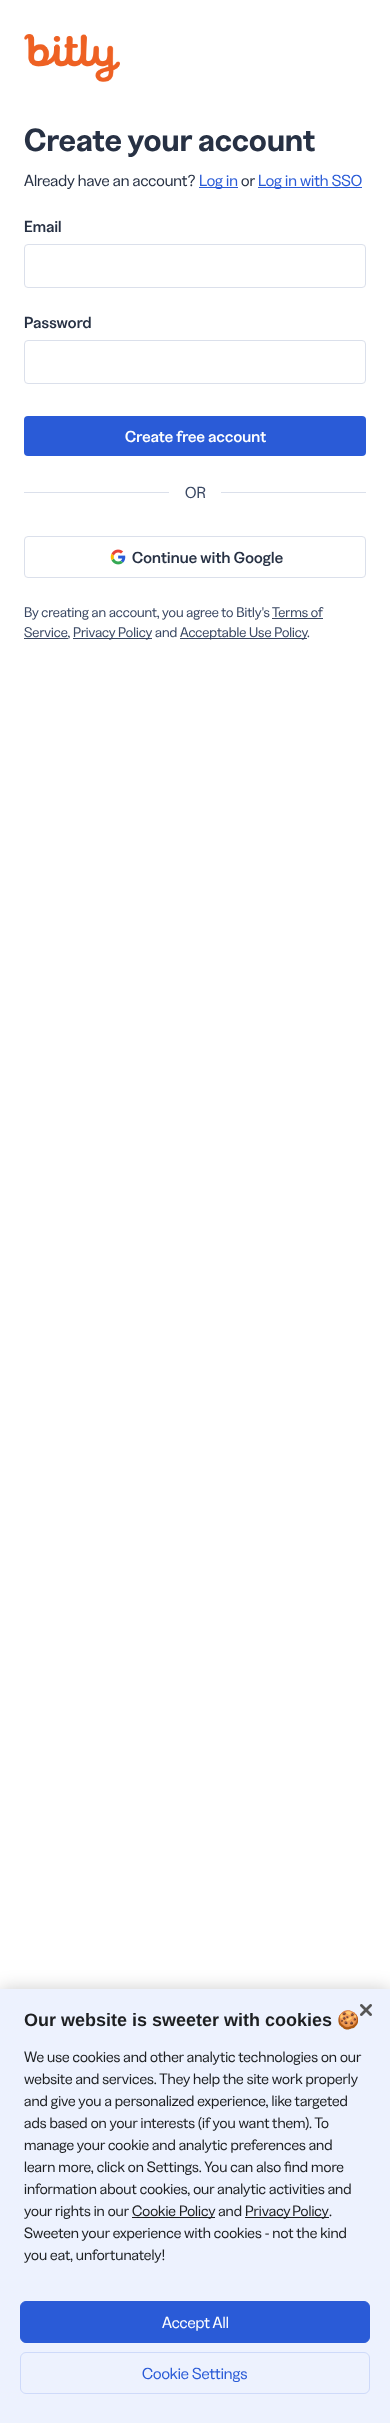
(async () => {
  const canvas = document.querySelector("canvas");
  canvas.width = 390;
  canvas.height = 2423;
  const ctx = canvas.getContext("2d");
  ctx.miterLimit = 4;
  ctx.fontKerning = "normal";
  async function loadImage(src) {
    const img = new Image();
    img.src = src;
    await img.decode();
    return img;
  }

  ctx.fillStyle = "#ffffff";
  ctx.fillRect(0, 0, 390, 2423);
  ctx.drawImage(await loadImage("img/1.png"), 24, 34, 96, 48);
  ctx.fillStyle = "#2a5bd7";
  ctx.fillRect(199, 187, 39, 1);
  ctx.fillRect(258, 187, 104, 1);
  ctx.beginPath();
  ctx.roundRect(24.5, 244.5, 341, 43, 3.5);
  ctx.strokeStyle = "#dbe0eb";
  ctx.stroke();
  ctx.beginPath();
  ctx.roundRect(24.5, 340.5, 341, 43, 3.5);
  ctx.stroke();
  ctx.beginPath();
  ctx.roundRect(24, 416, 342, 40, 4);
  ctx.fill();
  ctx.fillStyle = "#dbe0eb";
  ctx.fillRect(24, 492, 145, 1);
  ctx.fillRect(221, 492, 145, 1);
  ctx.beginPath();
  ctx.roundRect(24.5, 536.5, 341, 41, 3.5);
  ctx.stroke();
  ctx.drawImage(await loadImage("img/2.png"), 110, 549, 16, 16);
  for (const [x, y, w, h, color] of [
    [272, 618, 51, 1, "#3a4863"],
    [24, 638, 44, 1, "#3a4863"],
    [73, 638, 79, 1, "#3a4863"],
    [180, 638, 127, 1, "#3a4863"],
  ]) {
    ctx.fillStyle = color;
    ctx.fillRect(x, y, w, h);
  }
  ctx.fillStyle = "rgba(0, 0, 0, 0.2)";
  ctx.filter = "blur(9px)";
  ctx.beginPath();
  ctx.rect(0, 1989, 390, 434);
  ctx.fill();
  ctx.filter = "none";
  for (const [x, y, w, h, color] of [
    [0, 1989, 390, 434, "#edf2fe"],
    [132, 2217, 83, 1, "#1d1f21"],
    [245, 2217, 84, 1, "#1d1f21"],
  ]) {
    ctx.fillStyle = color;
    ctx.fillRect(x, y, w, h);
  }
  ctx.fillStyle = "#2a5bd7";
  ctx.beginPath();
  ctx.roundRect(20.5, 2301.5, 349, 41, 5.5);
  ctx.fill();
  ctx.strokeStyle = "#2a5bd7";
  ctx.stroke();
  ctx.beginPath();
  ctx.roundRect(20.5, 2352.5, 349, 41, 5.5);
  ctx.strokeStyle = "#cedafa";
  ctx.stroke();
  ctx.drawImage(await loadImage("img/3.png"), 360, 2004, 12, 12);
  ctx.letterSpacing = "0.3px";
  ctx.font = "600 32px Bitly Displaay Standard";
  ctx.fillStyle = "#273144";
  ctx.fillText("Create your account", 24, 151);
  ctx.letterSpacing = "0px";
  ctx.font = "16px Bitly Displaay Standard";
  ctx.fillText("Already have an account?", 24, 186);
  ctx.fillStyle = "#2a5bd7";
  ctx.fillText("Log in", 199, 186);
  ctx.fillStyle = "#273144";
  ctx.fillText("or", 241, 186);
  ctx.fillStyle = "#2a5bd7";
  ctx.fillText("Log in with SSO", 258, 186);
  ctx.letterSpacing = "0.2px";
  ctx.font = "500 16px Bitly Displaay Standard";
  ctx.fillStyle = "#273144";
  ctx.fillText("Email", 24, 232);
  ctx.fillText("Password", 24, 328);
  ctx.fillStyle = "#ffffff";
  ctx.fillText("Create free account", 125, 442);
  ctx.letterSpacing = "0px";
  ctx.font = "16px Bitly Displaay Standard";
  ctx.fillStyle = "#3a4863";
  ctx.fillText("OR", 185, 498);
  ctx.letterSpacing = "0.2px";
  ctx.font = "500 16px Bitly Displaay Standard";
  ctx.fillStyle = "#273144";
  ctx.fillText("Continue with Google", 132, 563);
  ctx.letterSpacing = "0px";
  ctx.font = "14px Bitly Displaay Standard";
  ctx.fillStyle = "#3a4863";
  for (const [text, x, y] of [
    ["By creating an account, you agree to Bitly's Terms of", 24, 617],
    ["Service,", 24, 637],
    ["Privacy Policy", 73, 637],
    ["and", 155, 637],
    ["Acceptable Use Policy", 180, 637],
    [".", 307, 637],
  ]) {
    ctx.fillText(text, x, y);
  }
  ctx.font = "bold 18px Liberation Sans";
  ctx.fillStyle = "#1d1f21";
  ctx.fillText("Our website is sweeter with cookies", 24, 2026);
  ctx.font = "bold 18px Noto Color Emoji";
  ctx.fillText("🍪", 337, 2026);
  ctx.font = "15px Bitly Displaay Standard";
  for (const [text, x, y] of [
    ["We use cookies and other analytic technologies on our", 24, 2062],
    ["website and services. They help the site work properly", 24, 2084],
    ["and give you a personalized experience, like targeted", 24, 2106],
    ["ads based on your interests (if you want them). To", 24, 2128],
    ["manage your cookie and analytic preferences and", 24, 2150],
    ["learn more, click on Settings. You can also find more", 24, 2172],
    ["information about cookies, our analytic activities and", 24, 2194],
    ["your rights in our", 24, 2216],
    ["Cookie Policy and", 132, 2216],
  ]) {
    ctx.fillText(text, x, y);
  }
  ctx.wordSpacing = "-1px";
  ctx.fillText("Privacy Policy", 245, 2216);
  ctx.wordSpacing = "0px";
  for (const [text, x, y] of [
    [".", 329, 2216],
    ["Sweeten your experience with cookies - not the kind", 24, 2238],
    ["you eat, unfortunately!", 24, 2260],
  ]) {
    ctx.fillText(text, x, y);
  }
  ctx.font = "16px Bitly Displaay Standard";
  ctx.fillStyle = "#ffffff";
  ctx.fillText("Accept All", 162, 2328);
  ctx.fillStyle = "#2a5bd7";
  ctx.fillText("Cookie Settings", 142, 2379);
})();
